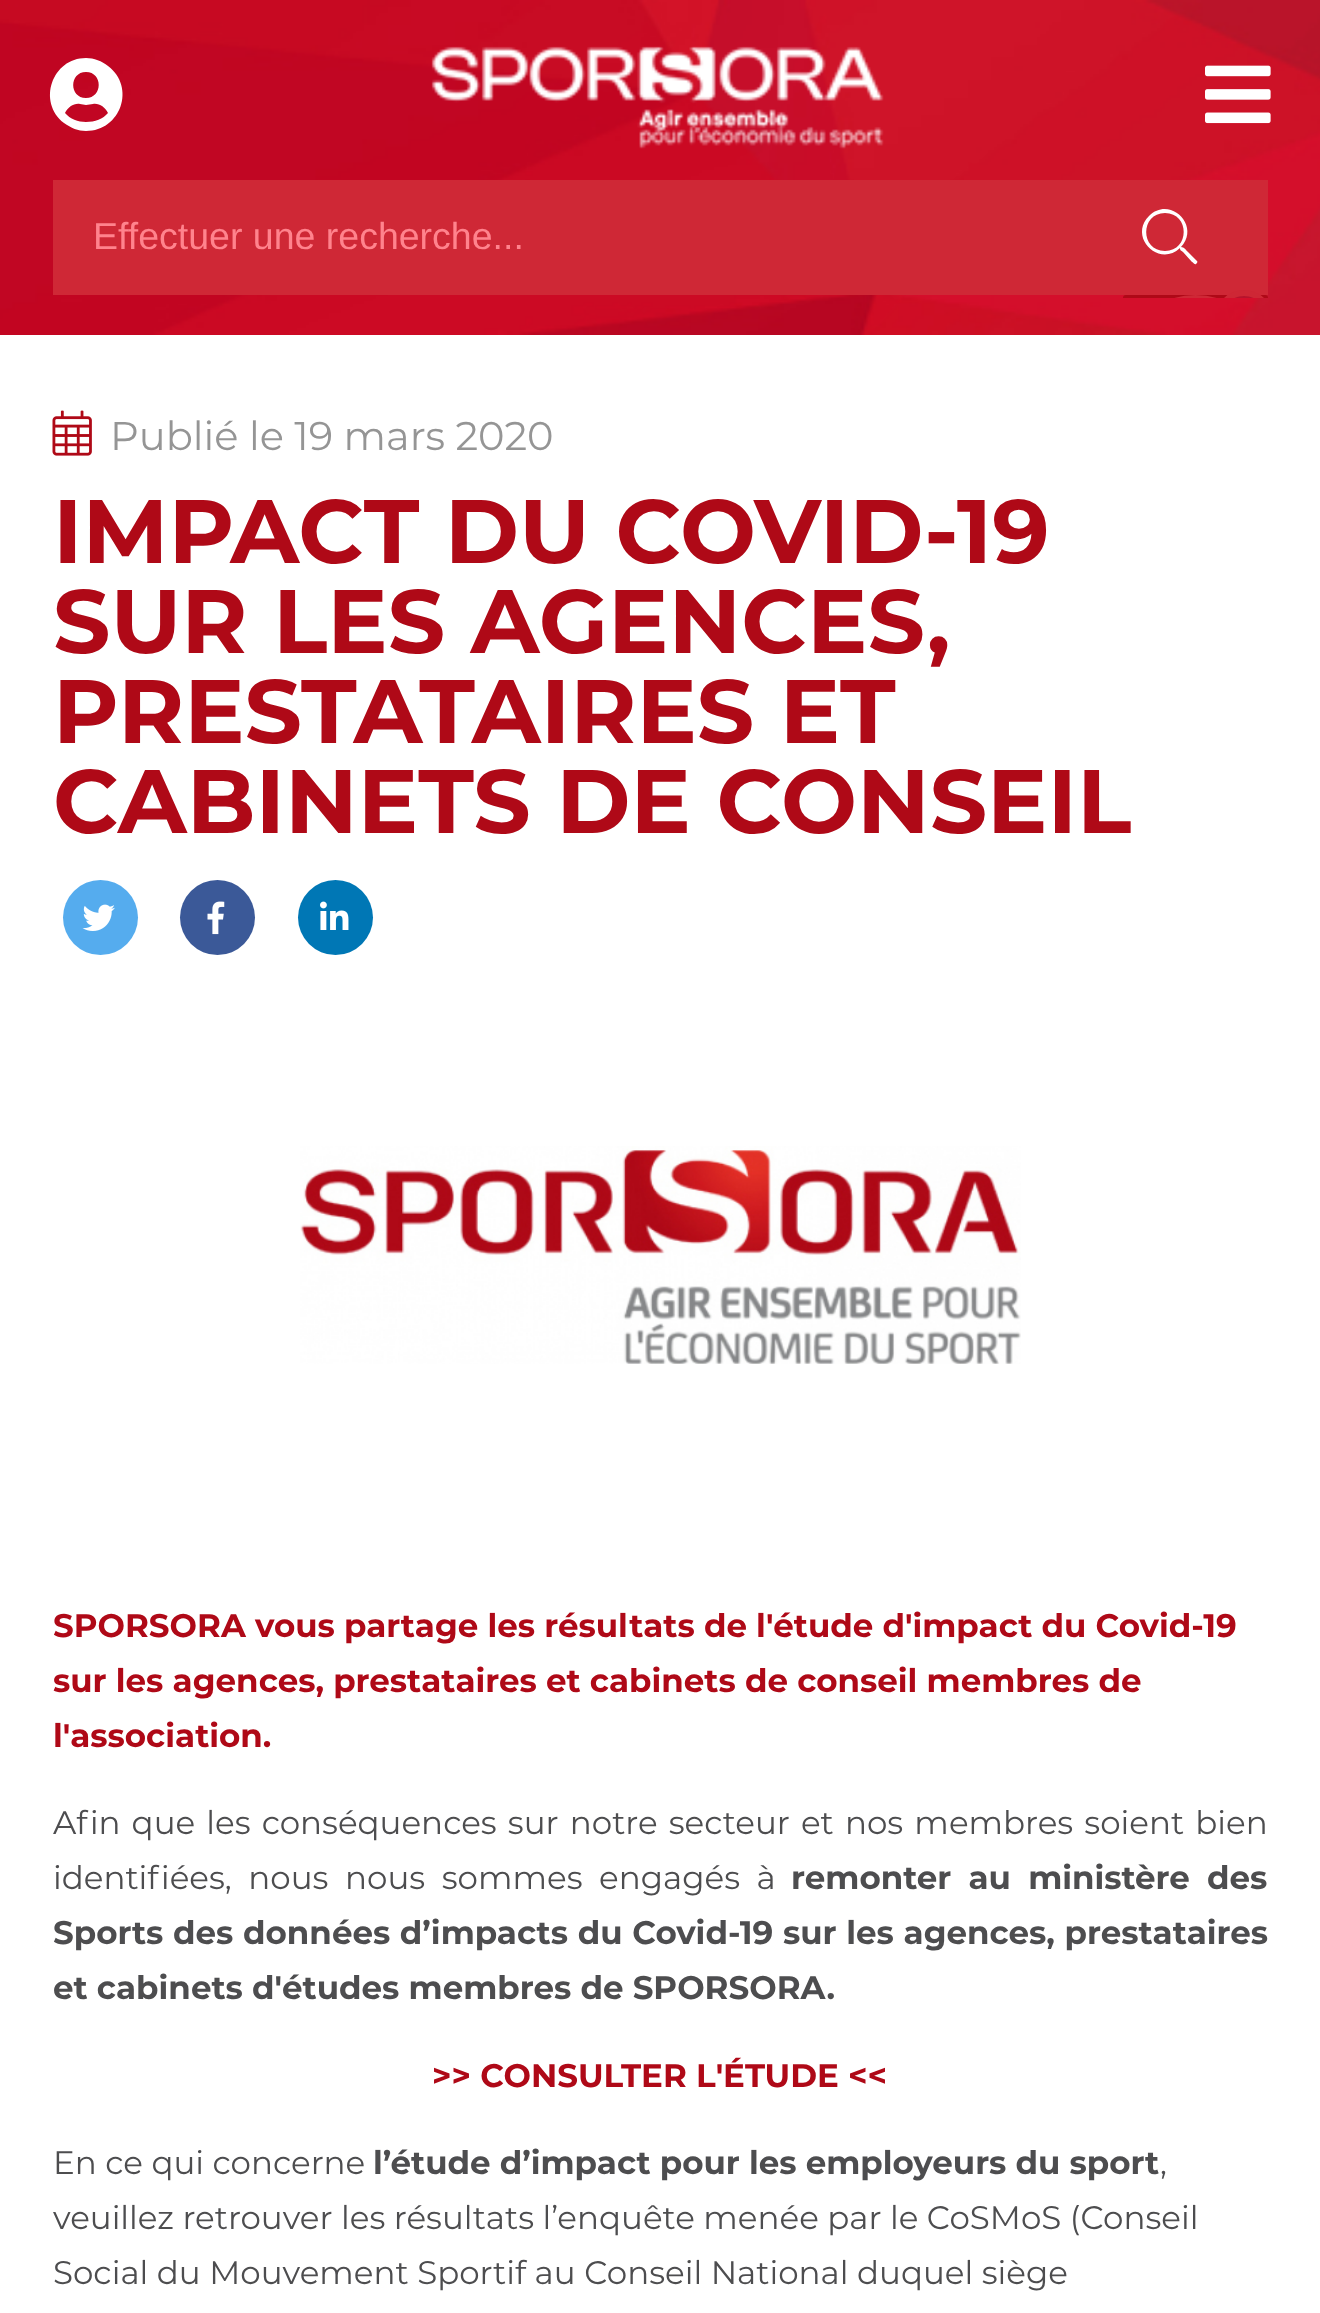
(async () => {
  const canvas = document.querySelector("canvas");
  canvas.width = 1320;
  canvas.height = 2313;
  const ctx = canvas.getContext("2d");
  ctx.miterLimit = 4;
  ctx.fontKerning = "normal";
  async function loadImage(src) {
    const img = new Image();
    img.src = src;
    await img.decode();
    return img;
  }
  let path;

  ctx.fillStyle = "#ffffff";
  ctx.fillRect(0, 0, 1320, 2313);
  ctx.drawImage(await loadImage("img/1.png"), 0, 0, 1320, 335);
  path = new Path2D("M86 58C52 58 37 102 64 123C71 128 78 131 86 131C121 131 136 87 108 66C102 61 94 58 86 58ZM86 72C103 72 103 98 86 98C69 98 69 72 86 72ZM86 122C78 122 70 119 65 113C68 107 74 103 80 104L86 105L93 104C99 103 105 107 108 113C103 119 95 122 86 122Z");
  ctx.fill(path);
  ctx.drawImage(await loadImage("img/2.png"), 431, 46, 453, 103);
  ctx.drawImage(await loadImage("img/3.png"), 1205, 65, 66, 59);
  ctx.fillStyle = "#cf2836";
  ctx.fillRect(53, 180, 1215, 115);
  ctx.fillStyle = "#ffffff";
  path = new Path2D("M1197 261L1188 252C1186 250 1184 247 1181 247C1201 226 1170 195 1149 216C1128 237 1159 268 1180 248C1180 251 1181 250 1183 252L1192 262C1193 262 1194 265 1196 264C1197 263 1198 262 1197 261ZM1165 251C1140 251 1140 213 1165 213C1190 213 1190 251 1165 251Z");
  ctx.fill(path);
  ctx.fillStyle = "#af0917";
  ctx.beginPath();
  ctx.roundRect(1123, 295, 145, 3, [72.5, 72.5, 0, 0]);
  ctx.fill();
  ctx.save();
  ctx.beginPath();
  ctx.rect(53, 155, 1215, 143);
  ctx.clip();
  ctx.beginPath();
  ctx.arc(1195.5, 367.5, 69.5, 0, Math.PI * 2);
  ctx.strokeStyle = "#cf2836";
  ctx.lineWidth = 6;
  ctx.stroke();
  ctx.fillStyle = "#b7132c";
  ctx.beginPath();
  ctx.arc(1244, 319, 26, 0, Math.PI * 2);
  ctx.fill();
  ctx.strokeStyle = "#ce2735";
  ctx.stroke();
  ctx.restore();
  ctx.drawImage(await loadImage("img/4.png"), 52, 410, 40, 46);
  ctx.fillStyle = "#55acee";
  ctx.beginPath();
  ctx.arc(100.5, 917.5, 37.5, 0, Math.PI * 2);
  ctx.fill();
  ctx.drawImage(await loadImage("img/5.png"), 82, 904, 33, 27);
  ctx.fillStyle = "#3b5998";
  ctx.beginPath();
  ctx.arc(217.5, 917.5, 37.5, 0, Math.PI * 2);
  ctx.fill();
  ctx.drawImage(await loadImage("img/6.png"), 207, 901, 18, 34);
  ctx.fillStyle = "#0077b5";
  ctx.beginPath();
  ctx.arc(335.5, 917.5, 37.5, 0, Math.PI * 2);
  ctx.fill();
  ctx.drawImage(await loadImage("img/7.png"), 320, 901, 29, 29);
  ctx.drawImage(await loadImage("img/8.png"), 300, 1146, 721, 218);
  ctx.font = "37.5px Liberation Sans";
  ctx.fillStyle = "#ff838d";
  ctx.fillText("Effectuer une recherche...", 93, 249);
  ctx.font = "40px Montserrat";
  ctx.fillStyle = "#959595";
  ctx.fillText("Publié le 19 mars 2020", 110, 450);
  ctx.font = "bold 90px Montserrat";
  ctx.fillStyle = "#af0917";
  for (const [text, x, y] of [
    ["IMPACT DU COVID-19", 53, 563],
    ["SUR LES AGENCES,", 53, 653],
    ["PRESTATAIRES ET", 53, 743],
    ["CABINETS DE CONSEIL", 53, 833],
  ]) {
    ctx.fillText(text, x, y);
  }
  ctx.font = "bold 32.5px Montserrat";
  for (const [text, x, y] of [
    ["SPORSORA vous partage les résultats de l'étude d'impact du Covid-19", 53, 1637],
    ["sur les agences, prestataires et cabinets de conseil membres de", 53, 1692],
    ["l'association.", 53, 1747],
  ]) {
    ctx.fillText(text, x, y);
  }
  ctx.wordSpacing = "2.6px";
  ctx.font = "32.5px Montserrat";
  ctx.fillStyle = "#4d4d4f";
  ctx.fillText("Afin que les conséquences sur notre secteur et nos membres soient bien", 53, 1834);
  ctx.wordSpacing = "8px";
  ctx.fillText("identifiées, nous nous sommes engagés à", 53, 1889);
  ctx.font = "bold 32.5px Montserrat";
  ctx.fillText("remonter au ministère des", 791, 1889);
  ctx.wordSpacing = "0.5px";
  ctx.fillText("Sports des données d’impacts du Covid-19 sur les agences, prestataires", 53, 1944);
  ctx.wordSpacing = "0px";
  ctx.fillText("et cabinets d'études membres de SPORSORA.", 53, 1999);
  ctx.fillStyle = "#af0917";
  ctx.fillText(">> CONSULTER L'ÉTUDE <<", 432, 2087);
  ctx.font = "32.5px Montserrat";
  ctx.fillStyle = "#4d4d4f";
  ctx.fillText("En ce qui concerne", 53, 2174);
  ctx.font = "bold 32.5px Montserrat";
  ctx.fillText("l’étude d’impact pour les employeurs du sport", 373, 2174);
  ctx.font = "32.5px Montserrat";
  for (const [text, x, y] of [
    [",", 1160, 2174],
    ["veuillez retrouver les résultats l’enquête menée par le CoSMoS (Conseil", 53, 2229],
    ["Social du Mouvement Sportif au Conseil National duquel siège", 53, 2284],
  ]) {
    ctx.fillText(text, x, y);
  }
})();
